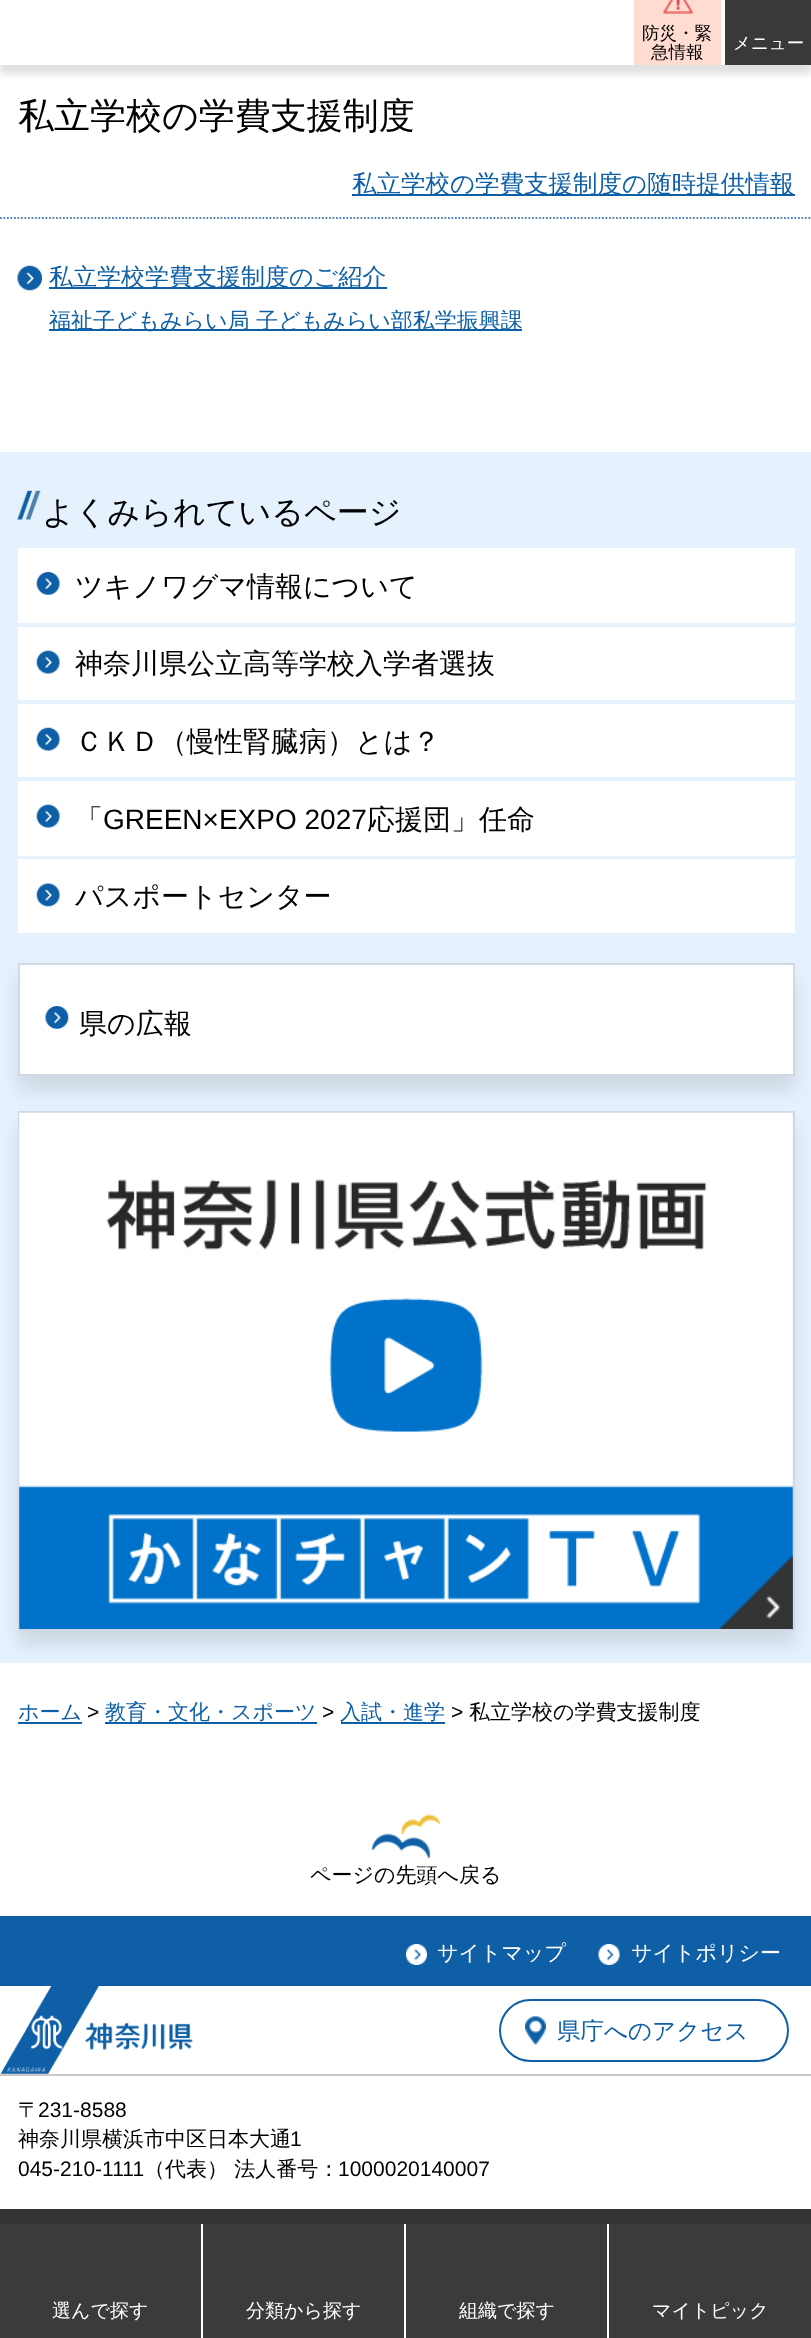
(async () => {
  const canvas = document.querySelector("canvas");
  canvas.width = 811;
  canvas.height = 2338;
  const ctx = canvas.getContext("2d");
  ctx.miterLimit = 4;
  ctx.fontKerning = "normal";
  async function loadImage(src) {
    const img = new Image();
    img.src = src;
    await img.decode();
    return img;
  }
  let path;

  ctx.fillStyle = "#ffffff";
  ctx.fillRect(0, 0, 811, 2338);
  ctx.save();
  path = new Path2D("M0 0H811V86H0ZM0-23H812V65H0Z");
  ctx.clip(path, "evenodd");
  ctx.fillStyle = "rgba(50, 50, 50, 0.15)";
  ctx.filter = "blur(3.5px)";
  ctx.beginPath();
  ctx.rect(0, -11, 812, 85);
  ctx.fill();
  ctx.filter = "none";
  ctx.restore();
  ctx.fillStyle = "#ffdcd1";
  ctx.fillRect(634, 0, 87, 65);
  ctx.drawImage(await loadImage("img/1.png"), 663, 0, 30, 14);
  for (const [x, y, w, h, color] of [
    [725, 0, 86, 65, "#393939"],
    [0, 64, 366, 1, "#ffffff"],
    [352, 194, 443, 2, "#0e5fa6"],
  ]) {
    ctx.fillStyle = color;
    ctx.fillRect(x, y, w, h);
  }
  path = new Path2D("M0 218H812");
  ctx.strokeStyle = "#4f82b4";
  ctx.lineWidth = 1.8;
  ctx.setLineDash([1.75, 1.75]);
  ctx.stroke(path);
  ctx.drawImage(await loadImage("img/2.png"), 17, 265, 25, 26);
  for (const [x, y, w, h, color] of [
    [49, 287, 338, 2, "#0e5fa6"],
    [49, 329, 473, 2, "#0e5fa6"],
    [0, 452, 811, 1211, "#e5f1fd"],
  ]) {
    ctx.fillStyle = color;
    ctx.fillRect(x, y, w, h);
  }
  ctx.drawImage(await loadImage("img/3.png"), 17, 490, 24, 30);
  ctx.fillStyle = "#ffffff";
  ctx.fillRect(18, 548, 777, 75);
  ctx.drawImage(await loadImage("img/4.png"), 36, 572, 24, 23);
  ctx.fillRect(18, 627, 777, 73);
  ctx.drawImage(await loadImage("img/5.png"), 36, 650, 24, 24);
  ctx.fillRect(18, 704, 777, 73);
  ctx.drawImage(await loadImage("img/5.png"), 36, 727, 24, 24);
  ctx.fillRect(18, 781, 777, 75);
  ctx.drawImage(await loadImage("img/5.png"), 36, 804, 24, 24);
  ctx.fillRect(18, 859, 777, 74);
  ctx.drawImage(await loadImage("img/6.png"), 36, 883, 24, 24);
  ctx.fillStyle = "rgba(0, 0, 0, 0.1)";
  ctx.filter = "blur(9px)";
  ctx.beginPath();
  ctx.rect(18, 977, 777, 113);
  ctx.fill();
  ctx.filter = "none";
  ctx.fillStyle = "#ffffff";
  ctx.fillRect(20, 965, 773, 109);
  ctx.drawImage(await loadImage("img/7.png"), 45, 1006, 24, 23);
  ctx.strokeStyle = "#cfd8e5";
  ctx.lineWidth = 2;
  ctx.setLineDash([]);
  ctx.strokeRect(19, 964, 775, 111);
  ctx.fillStyle = "rgba(0, 0, 0, 0.1)";
  ctx.filter = "blur(9px)";
  ctx.beginPath();
  ctx.rect(18, 1125, 777, 520);
  ctx.fill();
  ctx.filter = "none";
  ctx.strokeRect(19, 1112, 775, 518);
  ctx.drawImage(await loadImage("img/8.png"), 19, 1112, 774, 517);
  ctx.drawImage(await loadImage("img/9.png"), 719, 1555, 74, 74);
  for (const [x, y, w, h, color] of [
    [18, 1722, 64, 2, "#0e5fa6"],
    [105, 1722, 212, 2, "#0e5fa6"],
    [341, 1722, 104, 2, "#0e5fa6"],
  ]) {
    ctx.fillStyle = color;
    ctx.fillRect(x, y, w, h);
  }
  ctx.drawImage(await loadImage("img/10.png"), 371, 1814, 70, 45);
  ctx.fillRect(0, 1916, 811, 70);
  ctx.drawImage(await loadImage("img/11.png"), 406, 1944, 21, 21);
  ctx.drawImage(await loadImage("img/12.png"), 598, 1944, 22, 21);
  ctx.fillStyle = "#c9c9c9";
  ctx.fillRect(0, 2074, 811, 2);
  ctx.drawImage(await loadImage("img/13.png"), 0, 1986, 193, 88);
  ctx.drawImage(await loadImage("img/14.png"), 0, 1986, 193, 88);
  ctx.drawImage(await loadImage("img/15.png"), 525, 2016, 21, 29);
  ctx.beginPath();
  ctx.roundRect(500, 2000, 288, 61, 30.5);
  ctx.strokeStyle = "#0e5fa6";
  ctx.stroke();
  for (const [x, y, w, h, color] of [
    [0, 2209, 811, 15, "#333333"],
    [0, 2224, 201, 114, "#3a3b3a"],
    [203, 2224, 201, 114, "#3a3b3a"],
    [406, 2224, 201, 114, "#3a3b3a"],
    [609, 2224, 202, 114, "#3a3b3a"],
  ]) {
    ctx.fillStyle = color;
    ctx.fillRect(x, y, w, h);
  }
  ctx.font = "500 17.5px WenQuanYi Zen Hei";
  ctx.fillStyle = "#000000";
  ctx.fillText("防災・緊", 642, 39);
  ctx.fillText("急情報", 651, 58);
  ctx.fillStyle = "#ffffff";
  ctx.fillText("メニュー", 733, 49);
  ctx.font = "500 36px WenQuanYi Zen Hei";
  ctx.fillStyle = "#000000";
  ctx.fillText("私立学校の学費支援制度", 18, 128);
  ctx.font = "500 24.5px WenQuanYi Zen Hei";
  ctx.fillStyle = "#0e5fa6";
  ctx.fillText("私立学校の学費支援制度の随時提供情報", 352, 192);
  ctx.font = "500 24px WenQuanYi Zen Hei";
  ctx.fillText("私立学校学費支援制度のご紹介", 49, 285);
  ctx.font = "500 22px WenQuanYi Zen Hei";
  ctx.fillText("福祉子どもみらい局 子どもみらい部私学振興課", 49, 328);
  ctx.font = "500 32px WenQuanYi Zen Hei";
  ctx.fillStyle = "#000000";
  ctx.fillText("よくみられているページ", 42, 523);
  ctx.font = "500 28px WenQuanYi Zen Hei";
  for (const [text, x, y] of [
    ["ツキノワグマ情報について", 75, 596],
    ["神奈川県公立高等学校入学者選抜", 75, 673],
    ["ＣＫＤ（慢性腎臓病）とは？", 75, 751],
    ["「", 75, 829],
  ]) {
    ctx.fillText(text, x, y);
  }
  ctx.font = "28px Liberation Sans";
  ctx.fillText("GREEN×EXPO 2027", 103, 829);
  ctx.font = "500 28px WenQuanYi Zen Hei";
  for (const [text, x, y] of [
    ["応援団」任命", 367, 829],
    ["パスポートセンター", 75, 906],
    ["県の広報", 79, 1033],
  ]) {
    ctx.fillText(text, x, y);
  }
  ctx.font = "500 21px WenQuanYi Zen Hei";
  ctx.fillStyle = "#0e5fa6";
  ctx.fillText("ホーム", 18, 1719);
  ctx.font = "21px Liberation Sans";
  ctx.fillStyle = "#000000";
  ctx.fillText(">", 87, 1719);
  ctx.font = "500 21px WenQuanYi Zen Hei";
  ctx.fillStyle = "#0e5fa6";
  ctx.fillText("教育・文化・スポーツ", 105, 1719);
  ctx.font = "21px Liberation Sans";
  ctx.fillStyle = "#000000";
  ctx.fillText(">", 322, 1719);
  ctx.font = "500 21px WenQuanYi Zen Hei";
  ctx.fillStyle = "#0e5fa6";
  ctx.fillText("入試・進学", 340, 1719);
  ctx.font = "21px Liberation Sans";
  ctx.fillStyle = "#000000";
  ctx.fillText(">", 451, 1719);
  ctx.font = "500 21px WenQuanYi Zen Hei";
  ctx.fillText("私立学校の学費支援制度", 469, 1719);
  ctx.fillText("ページの先頭へ戻る", 310, 1882);
  ctx.fillStyle = "#ffffff";
  ctx.fillText("サイトマップ", 437, 1960);
  ctx.fillText("サイトポリシー", 631, 1960);
  ctx.font = "500 23.5px WenQuanYi Zen Hei";
  ctx.fillStyle = "#0e5fa6";
  ctx.fillText("県庁へのアクセス", 557, 2039);
  ctx.font = "500 21px WenQuanYi Zen Hei";
  ctx.fillStyle = "#000000";
  ctx.fillText("〒", 18, 2117);
  ctx.font = "21px Liberation Sans";
  ctx.fillText("231-8588", 38, 2117);
  ctx.font = "500 21px WenQuanYi Zen Hei";
  ctx.fillText("神奈川県横浜市中区日本大通", 18, 2146);
  ctx.font = "21px Liberation Sans";
  ctx.fillText("1", 290, 2146);
  ctx.fillText("045-210-1111", 18, 2176);
  ctx.font = "500 21px WenQuanYi Zen Hei";
  ctx.fillText("（代表） 法人番号：", 144, 2176);
  ctx.font = "21px Liberation Sans";
  ctx.fillText("1000020140007", 338, 2176);
  ctx.font = "500 19px WenQuanYi Zen Hei";
  ctx.fillStyle = "#ffffff";
  for (const [text, x, y] of [
    ["選んで探す", 52, 2317],
    ["分類から探す", 246, 2317],
    ["組織で探す", 459, 2317],
    ["マイトピック", 652, 2317],
  ]) {
    ctx.fillText(text, x, y);
  }
})();
